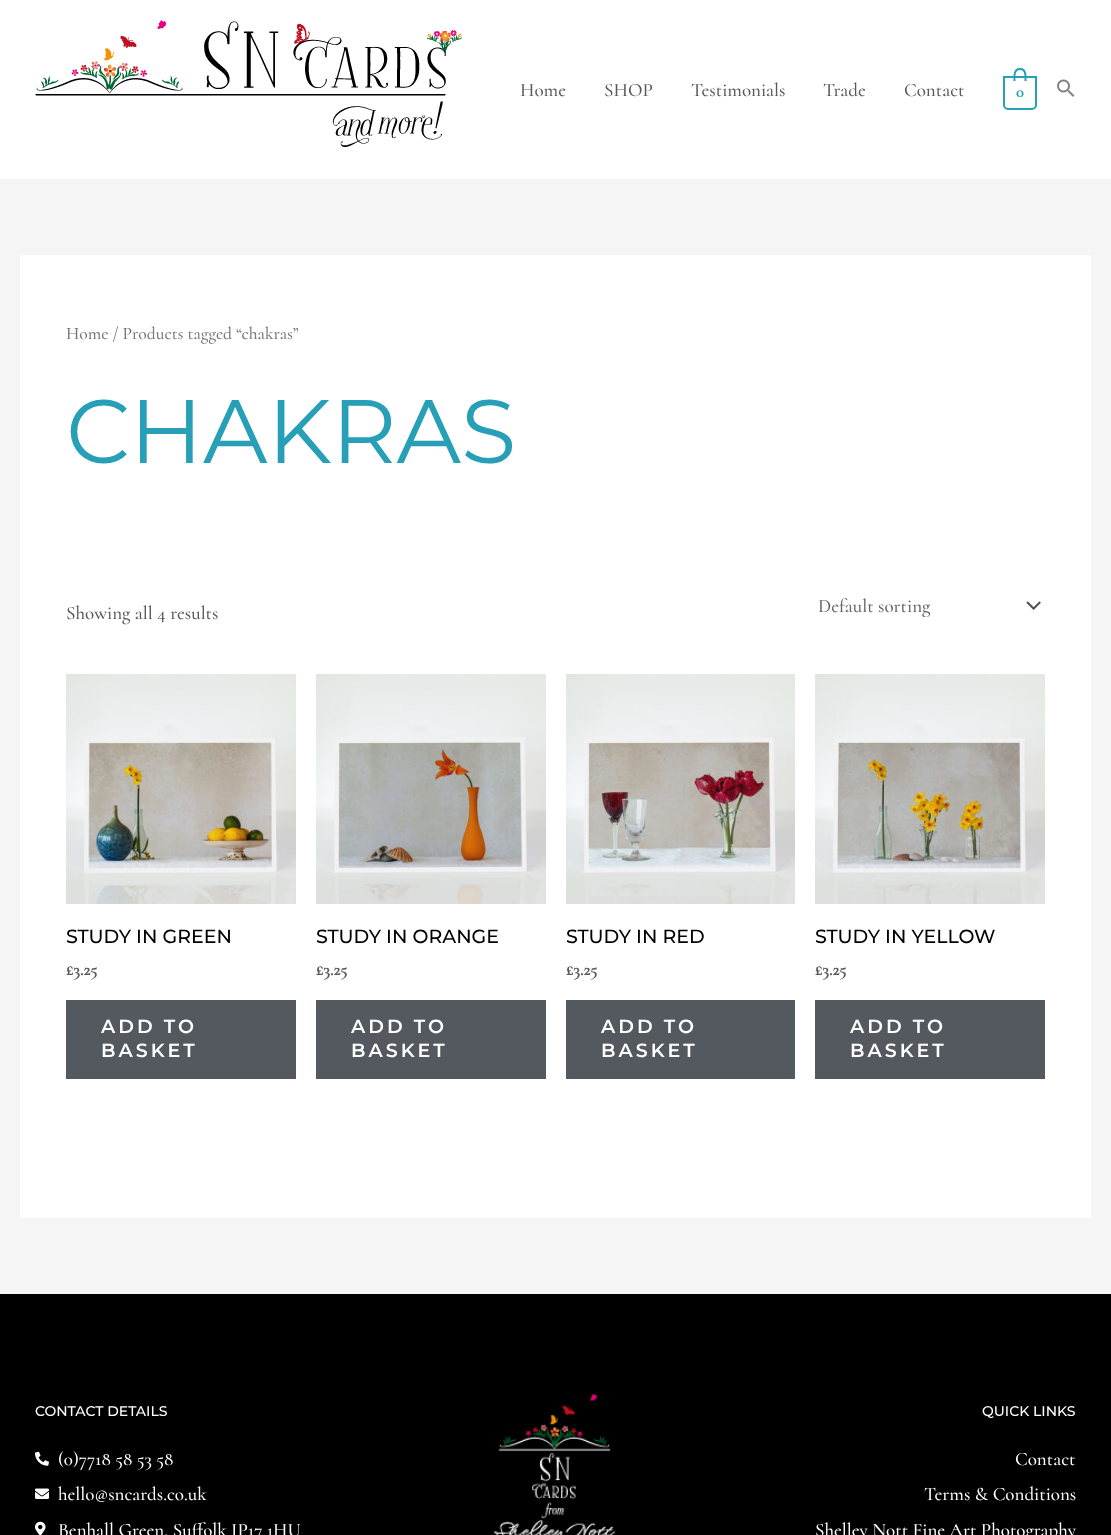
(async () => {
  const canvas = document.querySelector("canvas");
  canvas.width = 1111;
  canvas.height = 1535;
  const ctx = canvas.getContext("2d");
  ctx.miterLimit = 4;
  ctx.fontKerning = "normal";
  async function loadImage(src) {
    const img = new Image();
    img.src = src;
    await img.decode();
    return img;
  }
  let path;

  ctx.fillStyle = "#f5f5f5";
  ctx.fillRect(0, 0, 1111, 1535);
  ctx.fillStyle = "#ffffff";
  ctx.fillRect(0, 0, 1111, 179);
  ctx.drawImage(await loadImage("img/1.png"), 35, 20, 427, 127);
  ctx.beginPath();
  ctx.roundRect(1004, 77, 32, 32, [0, 0, 4, 4]);
  ctx.strokeStyle = "#269fb7";
  ctx.lineWidth = 2;
  ctx.stroke();
  ctx.fillStyle = "#269fb7";
  path = new Path2D("M1020 68C1027.5 68 1026.5 76 1026.5 81H1013.5C1013.5 76 1012.5 68 1020 68ZM1020 70C1025.5 70 1024.5 77.5 1024.5 81H1015.5C1015.5 77.5 1014.5 70 1020 70Z");
  ctx.fill(path, "evenodd");
  ctx.drawImage(await loadImage("img/2.png"), 1057, 79, 18, 18);
  ctx.fillStyle = "#ffffff";
  ctx.fillRect(20, 255, 1071, 963);
  ctx.drawImage(await loadImage("img/3.png"), 1026, 601, 15, 9);
  ctx.drawImage(await loadImage("img/4.png"), 66, 674, 230, 230);
  ctx.fillStyle = "#54595f";
  ctx.fillRect(66, 1000, 230, 79);
  ctx.drawImage(await loadImage("img/5.png"), 316, 674, 230, 230);
  ctx.fillRect(316, 1000, 230, 79);
  ctx.drawImage(await loadImage("img/6.png"), 566, 674, 229, 230);
  ctx.fillRect(566, 1000, 229, 79);
  ctx.drawImage(await loadImage("img/7.png"), 815, 674, 230, 230);
  ctx.fillRect(815, 1000, 230, 79);
  ctx.fillStyle = "#000000";
  ctx.fillRect(0, 1294, 1111, 241);
  ctx.drawImage(await loadImage("img/8.png"), 35, 1451, 14, 15);
  ctx.drawImage(await loadImage("img/9.png"), 35, 1488, 14, 11);
  ctx.drawImage(await loadImage("img/10.png"), 35, 1521, 11, 14);
  ctx.drawImage(await loadImage("img/11.png"), 494, 1394, 122, 141);
  ctx.font = "300 19px Cormorant";
  ctx.fillStyle = "#595959";
  for (const [text, x, y] of [
    ["Home", 520, 96],
    ["SHOP", 604, 96],
    ["Testimonials", 691, 96],
    ["Trade", 823, 96],
    ["Contact", 904, 96],
  ]) {
    ctx.fillText(text, x, y);
  }
  ctx.font = "bold 16px Cormorant";
  ctx.fillStyle = "#269fb7";
  ctx.fillText("0", 1016, 97);
  ctx.font = "300 17.5px Cormorant";
  ctx.fillStyle = "#777777";
  ctx.fillText("Home / Products tagged “chakras”", 66, 339);
  ctx.font = "90px Montserrat";
  ctx.fillStyle = "#269fb7";
  ctx.fillText("CHAKRAS", 66, 463);
  ctx.font = "300 19px Cormorant";
  ctx.fillStyle = "#595959";
  ctx.fillText("Showing all 4 results", 66, 619);
  ctx.save();
  ctx.beginPath();
  ctx.rect(818, 594, 189, 23);
  ctx.clip();
  ctx.fillStyle = "#666666";
  ctx.fillText("Default sorting", 818, 612);
  ctx.restore();
  ctx.font = "500 19px Montserrat";
  ctx.fillStyle = "#000000";
  ctx.fillText("STUDY IN GREEN", 66, 943);
  ctx.font = "bold 17px Cormorant";
  ctx.fillStyle = "#595959";
  ctx.fillText("£3.25", 66, 975);
  ctx.letterSpacing = "3px";
  ctx.font = "600 19px Montserrat";
  ctx.fillStyle = "#ffffff";
  ctx.fillText("ADD TO", 101, 1033);
  ctx.fillText("BASKET", 101, 1057);
  ctx.letterSpacing = "0px";
  ctx.font = "500 19px Montserrat";
  ctx.fillStyle = "#000000";
  ctx.fillText("STUDY IN ORANGE", 316, 943);
  ctx.font = "bold 17px Cormorant";
  ctx.fillStyle = "#595959";
  ctx.fillText("£3.25", 316, 975);
  ctx.letterSpacing = "3px";
  ctx.font = "600 19px Montserrat";
  ctx.fillStyle = "#ffffff";
  ctx.fillText("ADD TO", 351, 1033);
  ctx.fillText("BASKET", 351, 1057);
  ctx.letterSpacing = "0px";
  ctx.font = "500 19px Montserrat";
  ctx.fillStyle = "#000000";
  ctx.fillText("STUDY IN RED", 566, 943);
  ctx.font = "bold 17px Cormorant";
  ctx.fillStyle = "#595959";
  ctx.fillText("£3.25", 566, 975);
  ctx.letterSpacing = "3px";
  ctx.font = "600 19px Montserrat";
  ctx.fillStyle = "#ffffff";
  ctx.fillText("ADD TO", 601, 1033);
  ctx.fillText("BASKET", 601, 1057);
  ctx.letterSpacing = "0px";
  ctx.font = "500 19px Montserrat";
  ctx.fillStyle = "#000000";
  ctx.fillText("STUDY IN YELLOW", 815, 943);
  ctx.font = "bold 17px Cormorant";
  ctx.fillStyle = "#595959";
  ctx.fillText("£3.25", 815, 975);
  ctx.letterSpacing = "3px";
  ctx.font = "600 19px Montserrat";
  ctx.fillStyle = "#ffffff";
  ctx.fillText("ADD TO", 850, 1033);
  ctx.fillText("BASKET", 850, 1057);
  ctx.letterSpacing = "0px";
  ctx.font = "500 14px Montserrat";
  ctx.fillText("CONTACT DETAILS", 35, 1416);
  ctx.font = "300 19px Cormorant";
  for (const [text, x, y] of [
    ["(0)7718 58 53 58", 58, 1465],
    ["hello@sncards.co.uk", 58, 1500],
    ["Benhall Green, Suffolk IP17 1HU", 58, 1536],
  ]) {
    ctx.fillText(text, x, y);
  }
  ctx.font = "500 14px Montserrat";
  ctx.fillText("QUICK LINKS", 982, 1416);
  ctx.font = "300 19px Cormorant";
  for (const [text, x, y] of [
    ["Contact", 1015, 1465],
    ["Terms & Conditions", 924, 1500],
    ["Shelley Nott Fine Art Photography", 815, 1536],
  ]) {
    ctx.fillText(text, x, y);
  }
})();
